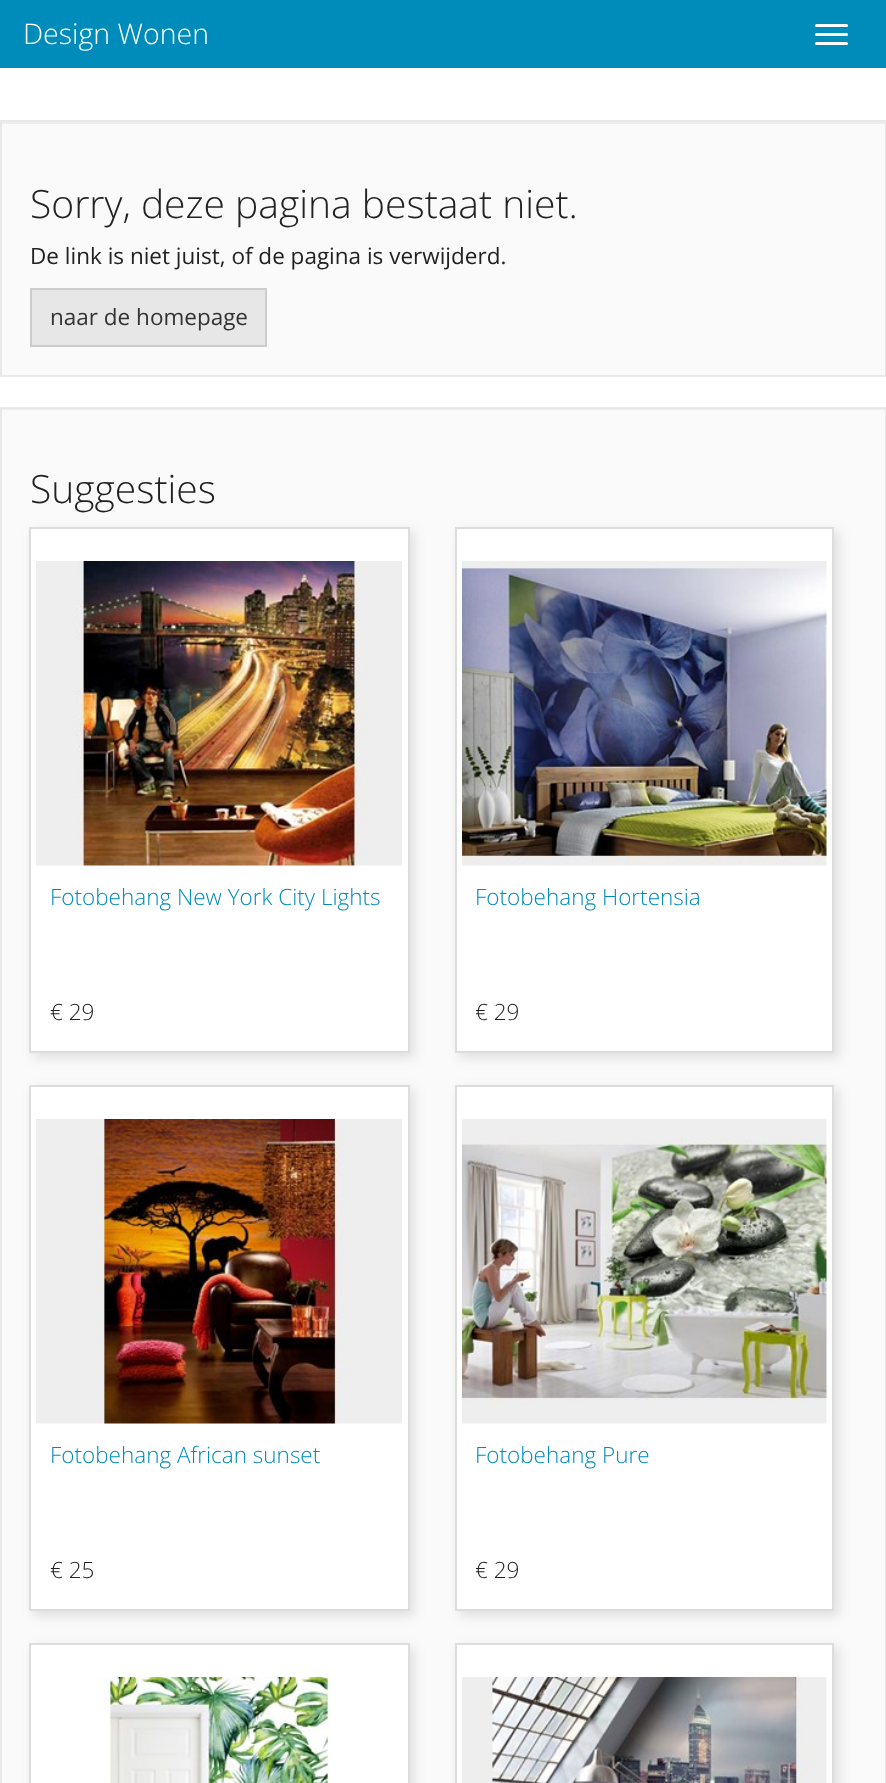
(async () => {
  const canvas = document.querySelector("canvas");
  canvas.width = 886;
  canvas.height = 1783;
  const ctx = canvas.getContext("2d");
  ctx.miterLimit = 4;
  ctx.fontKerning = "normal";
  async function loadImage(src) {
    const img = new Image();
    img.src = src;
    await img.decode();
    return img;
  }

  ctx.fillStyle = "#ffffff";
  ctx.fillRect(0, 0, 886, 1783);
  ctx.fillStyle = "#008cba";
  ctx.fillRect(0, 0, 886, 68);
  ctx.fillStyle = "#ffffff";
  ctx.beginPath();
  ctx.roundRect(815, 24, 33, 3, 1.5);
  ctx.fill();
  ctx.beginPath();
  ctx.roundRect(815, 33, 33, 3, 1.5);
  ctx.fill();
  ctx.beginPath();
  ctx.roundRect(815, 42, 33, 3, 1.5);
  ctx.fill();
  ctx.fillStyle = "#fafafa";
  ctx.fillRect(2, 124, 883, 251);
  ctx.fillStyle = "#eeeeee";
  ctx.fillRect(2, 122, 883, 2);
  ctx.strokeStyle = "#e8e8e8";
  ctx.lineWidth = 2;
  ctx.strokeRect(1, 121, 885, 255);
  ctx.fillStyle = "#e7e7e7";
  ctx.beginPath();
  ctx.rect(31, 289, 235, 57);
  ctx.fill();
  ctx.strokeStyle = "#cccccc";
  ctx.stroke();
  ctx.fillStyle = "#fafafa";
  ctx.fillRect(2, 410, 883, 1373);
  ctx.fillStyle = "#eeeeee";
  ctx.fillRect(2, 409, 883, 1);
  ctx.strokeStyle = "#e8e8e8";
  ctx.strokeRect(1, 408, 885, 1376);
  ctx.fillStyle = "rgba(75, 75, 75, 0.15)";
  ctx.filter = "blur(6px)";
  ctx.beginPath();
  ctx.rect(33, 531, 381, 527);
  ctx.fill();
  ctx.filter = "none";
  ctx.fillStyle = "#ffffff";
  ctx.beginPath();
  ctx.rect(30, 528, 379, 524);
  ctx.fill();
  ctx.strokeStyle = "#dddddd";
  ctx.stroke();
  ctx.drawImage(await loadImage("img/1.png"), 36, 561, 366, 305);
  ctx.fillStyle = "rgba(75, 75, 75, 0.15)";
  ctx.filter = "blur(6px)";
  ctx.beginPath();
  ctx.rect(459, 531, 380, 527);
  ctx.fill();
  ctx.filter = "none";
  ctx.fillStyle = "#ffffff";
  ctx.beginPath();
  ctx.rect(456, 528, 377, 524);
  ctx.fill();
  ctx.stroke();
  ctx.drawImage(await loadImage("img/2.png"), 462, 561, 365, 305);
  ctx.fillStyle = "rgba(75, 75, 75, 0.15)";
  ctx.filter = "blur(6px)";
  ctx.beginPath();
  ctx.rect(33, 1089, 381, 527);
  ctx.fill();
  ctx.filter = "none";
  ctx.fillStyle = "#ffffff";
  ctx.beginPath();
  ctx.rect(30, 1086, 379, 524);
  ctx.fill();
  ctx.stroke();
  ctx.drawImage(await loadImage("img/3.png"), 36, 1119, 366, 305);
  ctx.fillStyle = "rgba(75, 75, 75, 0.15)";
  ctx.filter = "blur(6px)";
  ctx.beginPath();
  ctx.rect(459, 1089, 380, 527);
  ctx.fill();
  ctx.filter = "none";
  ctx.fillStyle = "#ffffff";
  ctx.beginPath();
  ctx.rect(456, 1086, 377, 524);
  ctx.fill();
  ctx.stroke();
  ctx.drawImage(await loadImage("img/4.png"), 462, 1119, 365, 305);
  ctx.fillStyle = "rgba(75, 75, 75, 0.15)";
  ctx.filter = "blur(6px)";
  ctx.beginPath();
  ctx.rect(33, 1647, 381, 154);
  ctx.fill();
  ctx.filter = "none";
  ctx.fillStyle = "#ffffff";
  ctx.beginPath();
  ctx.rect(30, 1644, 379, 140);
  ctx.fill();
  ctx.stroke();
  ctx.drawImage(await loadImage("img/5.png"), 97, 1677, 233, 106);
  ctx.fillStyle = "rgba(75, 75, 75, 0.15)";
  ctx.filter = "blur(6px)";
  ctx.beginPath();
  ctx.rect(459, 1647, 380, 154);
  ctx.fill();
  ctx.filter = "none";
  ctx.fillStyle = "#ffffff";
  ctx.beginPath();
  ctx.rect(456, 1644, 377, 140);
  ctx.fill();
  ctx.stroke();
  ctx.drawImage(await loadImage("img/6.png"), 462, 1677, 365, 106);
  ctx.font = "300 28.5px Open Sans";
  ctx.fillText("Design Wonen", 23, 44);
  ctx.font = "300 39px Open Sans";
  ctx.fillStyle = "#222222";
  ctx.fillText("Sorry, deze pagina bestaat niet.", 30, 218);
  ctx.font = "22.5px Open Sans";
  ctx.fillText("De link is niet juist, of de pagina is verwijderd.", 30, 264);
  ctx.fillStyle = "#333333";
  ctx.fillText("naar de homepage", 50, 325);
  ctx.font = "300 39px Open Sans";
  ctx.fillStyle = "#222222";
  ctx.fillText("Suggesties", 30, 503);
  ctx.font = "300 22.5px Open Sans";
  ctx.fillStyle = "#008cba";
  ctx.fillText("Fotobehang New York City Lights", 50, 905);
  ctx.fillStyle = "#222222";
  ctx.fillText("€ 29", 50, 1020);
  ctx.fillStyle = "#008cba";
  ctx.fillText("Fotobehang Hortensia", 475, 905);
  ctx.save();
  ctx.beginPath();
  ctx.rect(476, 993, 337, 38);
  ctx.clip();
  ctx.fillStyle = "#222222";
  ctx.fillText("€ 29", 475, 1020);
  ctx.restore();
  ctx.fillText("Fotobehang African sunset", 50, 1463);
  ctx.fillStyle = "#222222";
  ctx.fillText("€ 25", 50, 1578);
  ctx.fillStyle = "#008cba";
  ctx.fillText("Fotobehang Pure", 475, 1463);
  ctx.save();
  ctx.beginPath();
  ctx.rect(476, 1551, 337, 38);
  ctx.clip();
  ctx.fillStyle = "#222222";
  ctx.fillText("€ 29", 475, 1578);
  ctx.restore();
})();
